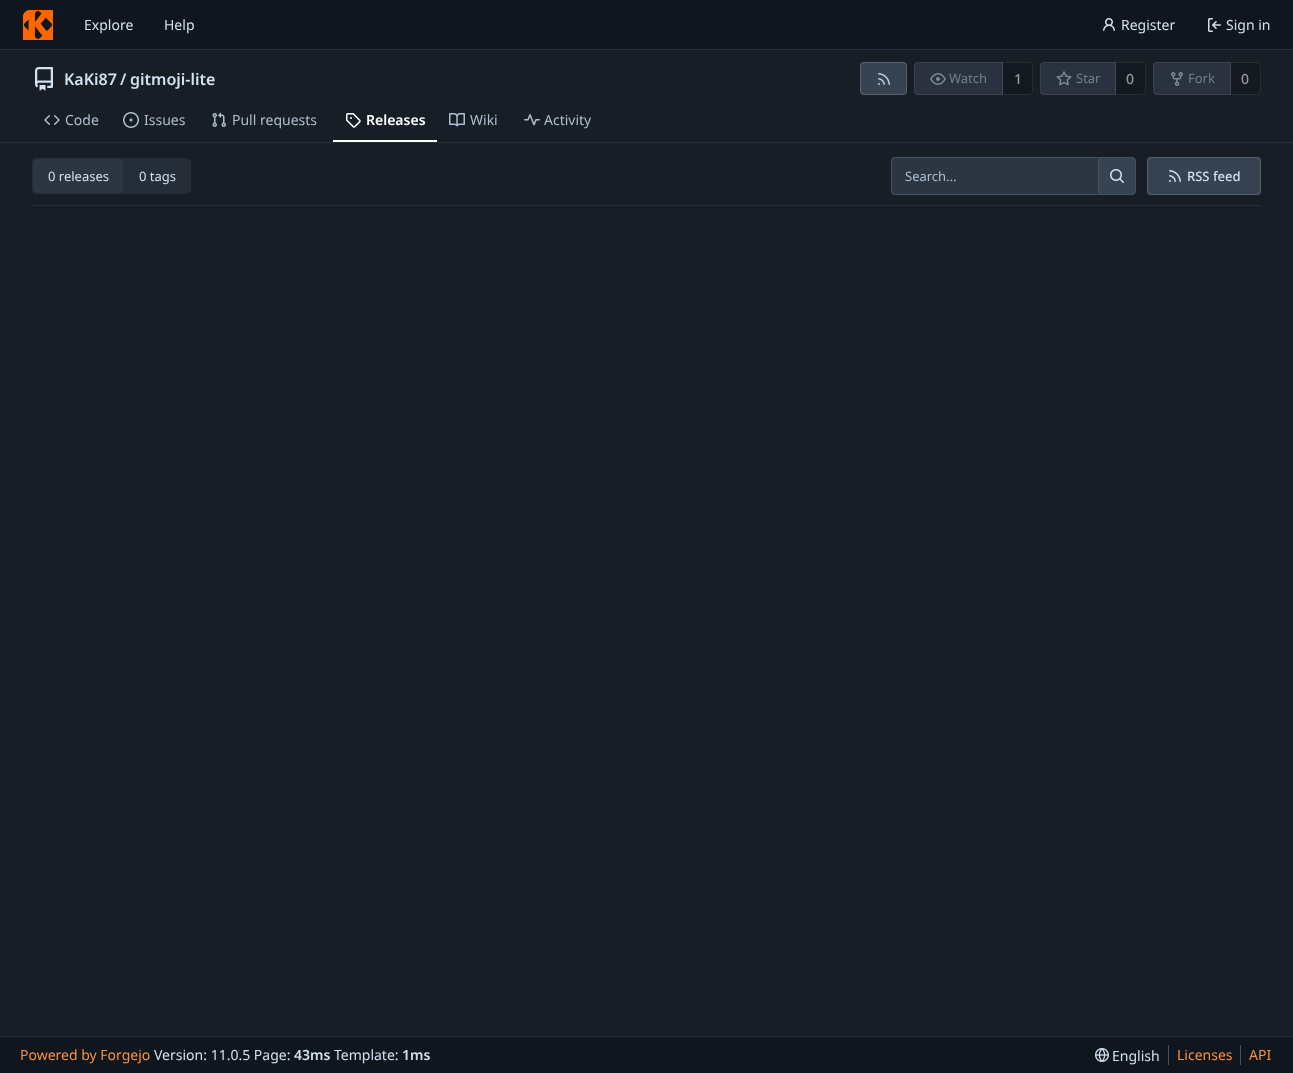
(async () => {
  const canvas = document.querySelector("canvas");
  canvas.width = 1293;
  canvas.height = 1073;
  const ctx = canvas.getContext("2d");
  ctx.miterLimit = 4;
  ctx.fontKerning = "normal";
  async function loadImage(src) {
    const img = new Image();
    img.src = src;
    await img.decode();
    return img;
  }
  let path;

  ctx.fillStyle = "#171e26";
  ctx.fillRect(0, 0, 1293, 1073);
  ctx.fillStyle = "#10161d";
  ctx.fillRect(0, 0, 1293, 49);
  ctx.fillStyle = "#242d38";
  ctx.fillRect(0, 49, 1293, 1);
  ctx.drawImage(await loadImage("img/1.png"), 23, 10, 30, 30);
  ctx.drawImage(await loadImage("img/2.png"), 1103, 18, 12, 13);
  ctx.drawImage(await loadImage("img/3.png"), 1208, 18, 13, 14);
  ctx.drawImage(await loadImage("img/4.png"), 35, 67, 18, 24);
  ctx.fillStyle = "#374351";
  ctx.beginPath();
  ctx.roundRect(860, 62, 47, 33, 4);
  ctx.fill();
  ctx.beginPath();
  ctx.roundRect(860.5, 62.5, 46, 32, 3.5);
  ctx.strokeStyle = "rgba(255, 255, 255, 0.16)";
  ctx.stroke();
  ctx.drawImage(await loadImage("img/5.png"), 878, 73, 12, 12);
  ctx.fillStyle = "#29323e";
  ctx.beginPath();
  ctx.roundRect(914, 62, 89, 33, [4, 0, 0, 4]);
  ctx.fill();
  ctx.beginPath();
  ctx.roundRect(914.5, 62.5, 88, 32, [3.5, 0, 0, 3.5]);
  ctx.strokeStyle = "rgba(151, 154, 157, 0.16)";
  ctx.stroke();
  ctx.drawImage(await loadImage("img/6.png"), 930, 73, 16, 12);
  ctx.fillStyle = "rgba(0, 0, 0, 0.14)";
  ctx.beginPath();
  ctx.roundRect(1002, 62, 31, 33, [0, 4, 4, 0]);
  ctx.fill();
  ctx.beginPath();
  ctx.roundRect(1002.5, 62.5, 30, 32, [0, 3.5, 3.5, 0]);
  ctx.strokeStyle = "rgba(255, 255, 255, 0.09)";
  ctx.stroke();
  ctx.fillStyle = "#29323e";
  ctx.beginPath();
  ctx.roundRect(1040, 62, 76, 33, [4, 0, 0, 4]);
  ctx.fill();
  ctx.beginPath();
  ctx.roundRect(1040.5, 62.5, 75, 32, [3.5, 0, 0, 3.5]);
  ctx.strokeStyle = "rgba(151, 154, 157, 0.16)";
  ctx.stroke();
  ctx.drawImage(await loadImage("img/7.png"), 1056, 71, 16, 15);
  ctx.fillStyle = "rgba(0, 0, 0, 0.14)";
  ctx.beginPath();
  ctx.roundRect(1115, 62, 31, 33, [0, 4, 4, 0]);
  ctx.fill();
  ctx.beginPath();
  ctx.roundRect(1115.5, 62.5, 30, 32, [0, 3.5, 3.5, 0]);
  ctx.strokeStyle = "rgba(255, 255, 255, 0.09)";
  ctx.stroke();
  ctx.fillStyle = "#29323e";
  ctx.beginPath();
  ctx.roundRect(1153, 62, 78, 33, [4, 0, 0, 4]);
  ctx.fill();
  ctx.beginPath();
  ctx.roundRect(1153.5, 62.5, 77, 32, [3.5, 0, 0, 3.5]);
  ctx.strokeStyle = "rgba(151, 154, 157, 0.16)";
  ctx.stroke();
  ctx.drawImage(await loadImage("img/8.png"), 1171, 72, 12, 14);
  ctx.fillStyle = "rgba(10, 14, 17, 0.25)";
  ctx.beginPath();
  ctx.roundRect(1230, 62, 31, 33, [0, 4, 4, 0]);
  ctx.fill();
  ctx.beginPath();
  ctx.roundRect(1230.5, 62.5, 30, 32, [0, 3.5, 3.5, 0]);
  ctx.stroke();
  ctx.drawImage(await loadImage("img/9.png"), 44, 115, 16, 10);
  ctx.drawImage(await loadImage("img/10.png"), 123, 112, 16, 16);
  ctx.drawImage(await loadImage("img/11.png"), 212, 112, 14, 15);
  ctx.fillStyle = "#ffffff";
  ctx.fillRect(333, 140, 104, 2);
  ctx.drawImage(await loadImage("img/12.png"), 346, 113, 15, 15);
  ctx.drawImage(await loadImage("img/13.png"), 449, 113, 16, 14);
  ctx.drawImage(await loadImage("img/14.png"), 524, 114, 16, 12);
  ctx.fillStyle = "#242d38";
  ctx.fillRect(0, 142, 1293, 1);
  ctx.beginPath();
  ctx.roundRect(32.5, 158.5, 158, 35, 3.5);
  ctx.strokeStyle = "#242d38";
  ctx.stroke();
  ctx.fillStyle = "#2b3642";
  ctx.beginPath();
  ctx.roundRect(33, 159, 91, 34, [4, 0, 0, 4]);
  ctx.fill();
  ctx.fillStyle = "#242d38";
  ctx.fillRect(123, 159, 1, 34);
  ctx.beginPath();
  ctx.roundRect(124, 159, 66, 34, [0, 4, 4, 0]);
  ctx.fill();
  ctx.fillStyle = "#2b3642";
  ctx.beginPath();
  ctx.roundRect(891, 157, 207, 38, [4, 0, 0, 4]);
  ctx.fill();
  ctx.fillStyle = "#445161";
  path = new Path2D("M895 157H1098V195H895C893 195 891 193 891 191V161C891 159 893 157 895 157ZM895 158H1098V194H895C893 194 892 193 892 191V161C892 159 893 158 895 158Z");
  ctx.fill(path, "evenodd");
  ctx.fillStyle = "#374351";
  ctx.beginPath();
  ctx.roundRect(1098.5, 157.5, 37, 37, [0, 3.5, 3.5, 0]);
  ctx.fill();
  ctx.strokeStyle = "#445161";
  ctx.stroke();
  ctx.drawImage(await loadImage("img/15.png"), 1110, 169, 14, 14);
  ctx.beginPath();
  ctx.roundRect(1147, 157, 114, 38, 4);
  ctx.fill();
  ctx.beginPath();
  ctx.roundRect(1147.5, 157.5, 113, 37, 3.5);
  ctx.strokeStyle = "rgba(255, 255, 255, 0.16)";
  ctx.stroke();
  ctx.drawImage(await loadImage("img/16.png"), 1169, 170, 12, 12);
  for (const [x, y, w, h, color] of [
    [32, 205, 1229, 1, "#242d38"],
    [0, 1037, 1293, 36, "#10161d"],
    [0, 1036, 1293, 1, "#242d38"],
  ]) {
    ctx.fillStyle = color;
    ctx.fillRect(x, y, w, h);
  }
  ctx.drawImage(await loadImage("img/17.png"), 1095, 1048, 14, 14);
  ctx.fillStyle = "#445161";
  ctx.fillRect(1168, 1045, 1, 20);
  ctx.fillRect(1240, 1045, 1, 20);
  ctx.font = "14px Noto Sans";
  ctx.fillStyle = "#d2e0f0";
  for (const [text, x, y] of [
    ["Explore", 84, 30],
    ["Help", 164, 30],
    ["Register", 1121, 30],
    ["Sign in", 1226, 30],
  ]) {
    ctx.fillText(text, x, y);
  }
  ctx.font = "600 16px Noto Sans";
  for (const [text, x, y] of [
    ["KaKi87", 64, 85],
    ["/", 120, 85],
    ["gitmoji-lite", 130, 85],
  ]) {
    ctx.fillText(text, x, y);
  }
  ctx.font = "13px Noto Sans";
  ctx.fillStyle = "#747f8c";
  ctx.fillText("Watch", 949, 83);
  ctx.font = "500 14px Noto Sans";
  ctx.fillStyle = "#979a9d";
  ctx.fillText("1", 1014, 84);
  ctx.font = "13px Noto Sans";
  ctx.fillStyle = "#747f8c";
  ctx.fillText("Star", 1076, 83);
  ctx.font = "500 14px Noto Sans";
  ctx.fillStyle = "#979a9d";
  ctx.fillText("0", 1126, 84);
  ctx.font = "13px Noto Sans";
  ctx.fillStyle = "#747f8c";
  ctx.fillText("Fork", 1188, 83);
  ctx.font = "500 14px Noto Sans";
  ctx.fillStyle = "#979a9d";
  ctx.fillText("0", 1241, 84);
  ctx.font = "14px Noto Sans";
  ctx.fillStyle = "#aebed0";
  for (const [text, x, y] of [
    ["Code", 65, 125],
    ["Issues", 144, 125],
    ["Pull requests", 232, 125],
  ]) {
    ctx.fillText(text, x, y);
  }
  ctx.font = "600 14px Noto Sans";
  ctx.fillStyle = "#ffffff";
  ctx.fillText("Releases", 366, 125);
  ctx.font = "14px Noto Sans";
  ctx.fillStyle = "#aebed0";
  ctx.fillText("Wiki", 470, 125);
  ctx.fillText("Activity", 544, 125);
  ctx.font = "13px Noto Sans";
  ctx.fillStyle = "#d2e0f0";
  ctx.fillText("0 releases", 48, 181);
  ctx.fillText("0 tags", 139, 181);
  ctx.fillStyle = "#aebed0";
  ctx.fillText("Search…", 905, 181);
  ctx.font = "500 13px Noto Sans";
  ctx.fillStyle = "#d2e0f0";
  ctx.fillText("RSS feed", 1187, 181);
  ctx.font = "14px Noto Sans";
  ctx.fillStyle = "#fb923c";
  ctx.fillText("Powered by Forgejo", 20, 1060);
  ctx.fillStyle = "#d2e0f0";
  ctx.fillText("Version: 11.0.5 Page:", 154, 1060);
  ctx.font = "600 14px Noto Sans";
  ctx.fillText("43ms", 294, 1060);
  ctx.font = "14px Noto Sans";
  ctx.fillText("Template:", 334, 1060);
  ctx.font = "600 14px Noto Sans";
  ctx.fillText("1ms", 402, 1060);
  ctx.font = "14px Noto Sans";
  ctx.fillText("English", 1112, 1061);
  ctx.fillStyle = "#fb923c";
  ctx.fillText("Licenses", 1177, 1060);
  ctx.fillText("API", 1249, 1060);
})();
